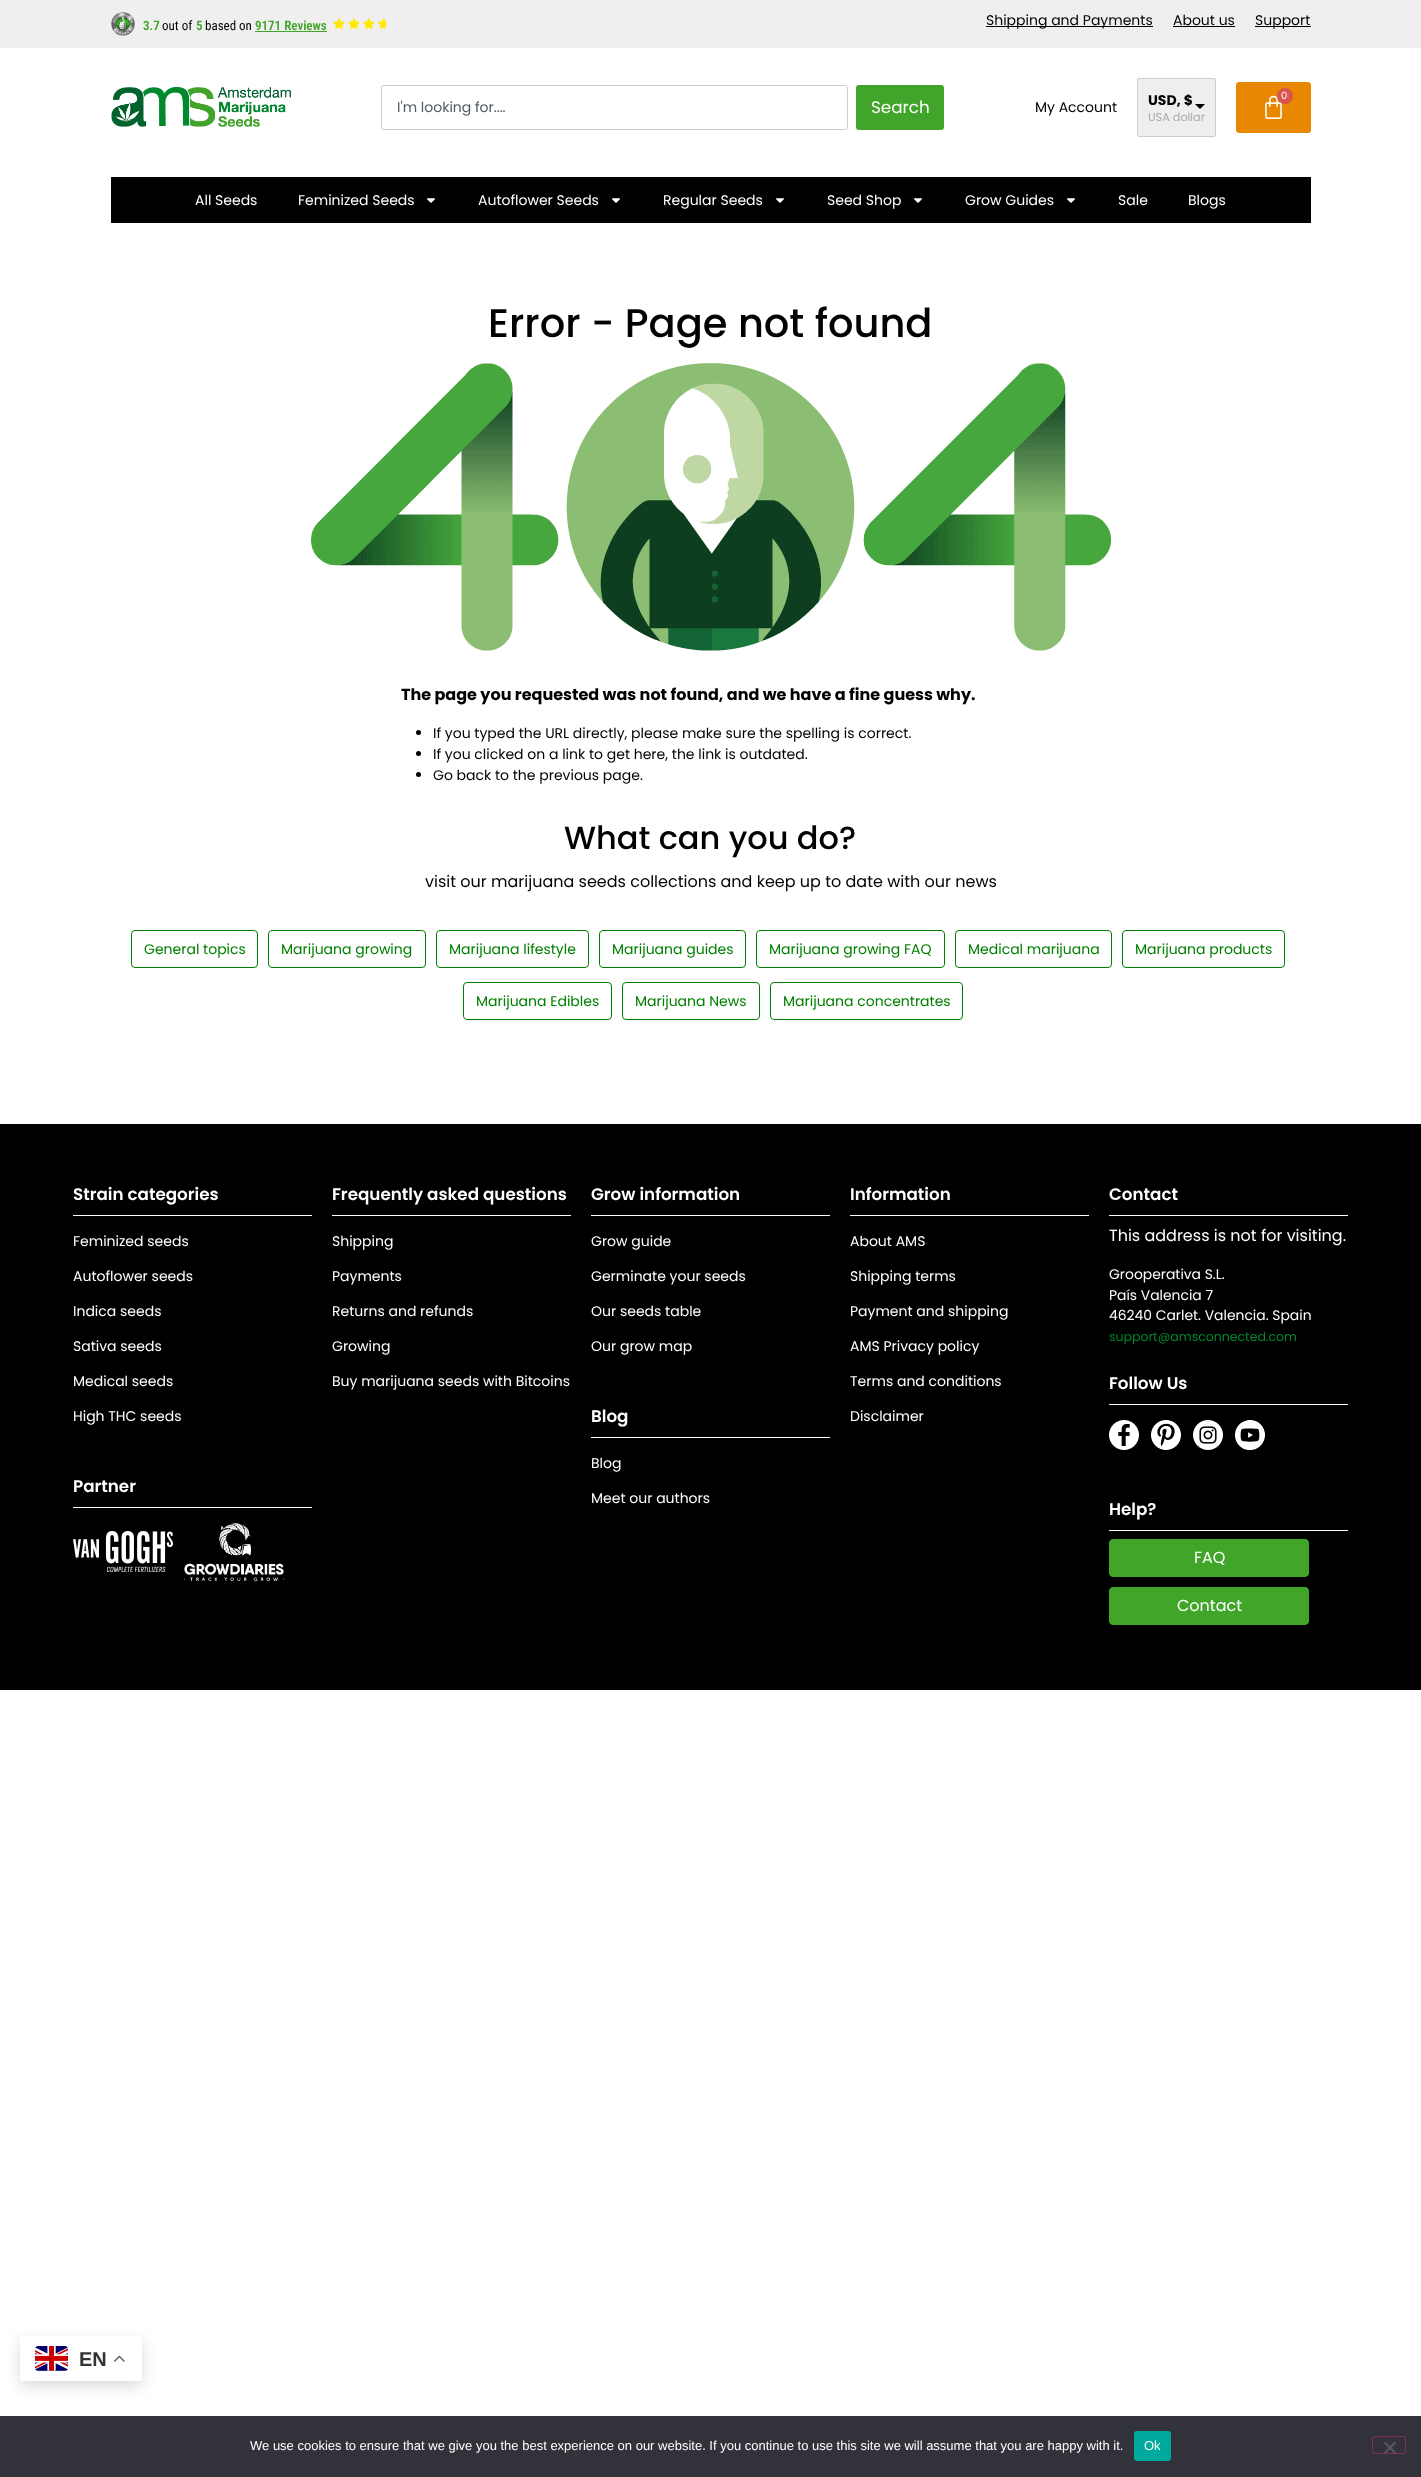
(async () => {
  const canvas = document.querySelector("canvas");
  canvas.width = 1421;
  canvas.height = 2477;
  const ctx = canvas.getContext("2d");
  ctx.miterLimit = 4;
  ctx.fontKerning = "normal";
  async function loadImage(src) {
    const img = new Image();
    img.src = src;
    await img.decode();
    return img;
  }
  let path;

  ctx.fillStyle = "#ffffff";
  ctx.fillRect(0, 0, 1421, 2477);
  ctx.fillStyle = "#efefef";
  ctx.fillRect(0, 0, 1421, 48);
  ctx.drawImage(await loadImage("img/1.png"), 111, 12, 24, 24);
  ctx.fillStyle = "#42a52b";
  ctx.fillRect(255, 31, 72, 1);
  ctx.drawImage(await loadImage("img/2.png"), 333, 18, 53, 11);
  for (const [x, y, w, h, color] of [
    [986, 26, 167, 1, "#000000"],
    [1173, 26, 62, 1, "#000000"],
    [1255, 26, 56, 1, "#000000"],
  ]) {
    ctx.fillStyle = color;
    ctx.fillRect(x, y, w, h);
  }
  ctx.drawImage(await loadImage("img/3.png"), 111, 87, 180, 40);
  ctx.beginPath();
  ctx.roundRect(381.5, 85.5, 466, 44, 2.5);
  ctx.strokeStyle = "#cdcdcd";
  ctx.stroke();
  ctx.fillStyle = "#42a52b";
  ctx.beginPath();
  ctx.roundRect(856, 85, 88, 45, 3);
  ctx.fill();
  ctx.fillStyle = "#eeeeee";
  ctx.beginPath();
  ctx.roundRect(1137.5, 78.5, 78, 58, 1.5);
  ctx.fill();
  ctx.strokeStyle = "#cccccc";
  ctx.stroke();
  ctx.fillStyle = "#000000";
  path = new Path2D("M1195 104H1205L1200 109Z");
  ctx.fill(path);
  ctx.fillStyle = "#e88700";
  ctx.beginPath();
  ctx.roundRect(1236.5, 82.5, 74, 50, 2.5);
  ctx.fill();
  ctx.strokeStyle = "#e88700";
  ctx.stroke();
  ctx.drawImage(await loadImage("img/4.png"), 1265, 95, 17, 24);
  ctx.fillStyle = "#d9534f";
  ctx.beginPath();
  ctx.arc(1285, 96, 8, 0, Math.PI * 2);
  ctx.fill();
  ctx.fillStyle = "#000000";
  ctx.fillRect(111, 177, 1200, 46);
  ctx.drawImage(await loadImage("img/5.png"), 427, 198, 8, 5);
  ctx.drawImage(await loadImage("img/5.png"), 612, 198, 8, 5);
  ctx.drawImage(await loadImage("img/5.png"), 776, 198, 8, 5);
  ctx.drawImage(await loadImage("img/5.png"), 914, 198, 8, 5);
  ctx.drawImage(await loadImage("img/5.png"), 1067, 198, 8, 5);
  ctx.drawImage(await loadImage("img/6.png"), 311, 363, 800, 289);
  ctx.beginPath();
  ctx.arc(418.5, 732.5, 2.5, 0, Math.PI * 2);
  ctx.fill();
  ctx.beginPath();
  ctx.arc(418.5, 753.5, 2.5, 0, Math.PI * 2);
  ctx.fill();
  ctx.beginPath();
  ctx.arc(418.5, 774.5, 2.5, 0, Math.PI * 2);
  ctx.fill();
  ctx.beginPath();
  ctx.roundRect(131.5, 930.5, 126, 37, 3.5);
  ctx.strokeStyle = "#008000";
  ctx.stroke();
  ctx.beginPath();
  ctx.roundRect(268.5, 930.5, 157, 37, 3.5);
  ctx.stroke();
  ctx.beginPath();
  ctx.roundRect(436.5, 930.5, 152, 37, 3.5);
  ctx.stroke();
  ctx.beginPath();
  ctx.roundRect(599.5, 930.5, 146, 37, 3.5);
  ctx.stroke();
  ctx.beginPath();
  ctx.roundRect(756.5, 930.5, 188, 37, 3.5);
  ctx.stroke();
  ctx.beginPath();
  ctx.roundRect(955.5, 930.5, 156, 37, 3.5);
  ctx.stroke();
  ctx.beginPath();
  ctx.roundRect(1122.5, 930.5, 162, 37, 3.5);
  ctx.stroke();
  ctx.beginPath();
  ctx.roundRect(463.5, 982.5, 148, 37, 3.5);
  ctx.stroke();
  ctx.beginPath();
  ctx.roundRect(622.5, 982.5, 137, 37, 3.5);
  ctx.stroke();
  ctx.beginPath();
  ctx.roundRect(770.5, 982.5, 192, 37, 3.5);
  ctx.stroke();
  for (const [x, y, w, h, color] of [
    [0, 1124, 1421, 566, "#000000"],
    [73, 1215, 239, 1, "#ffffff"],
    [73, 1507, 239, 1, "#ffffff"],
  ]) {
    ctx.fillStyle = color;
    ctx.fillRect(x, y, w, h);
  }
  ctx.drawImage(await loadImage("img/7.png"), 73, 1531, 100, 41);
  ctx.drawImage(await loadImage("img/8.png"), 184, 1523, 100, 58);
  for (const [x, y, w, h, color] of [
    [332, 1215, 239, 1, "#ffffff"],
    [591, 1215, 239, 1, "#ffffff"],
    [591, 1437, 239, 1, "#ffffff"],
    [850, 1215, 239, 1, "#ffffff"],
    [1109, 1215, 239, 1, "#ffffff"],
    [1109, 1404, 239, 1, "#ffffff"],
  ]) {
    ctx.fillStyle = color;
    ctx.fillRect(x, y, w, h);
  }
  ctx.drawImage(await loadImage("img/9.png"), 1109, 1420, 30, 30);
  ctx.drawImage(await loadImage("img/10.png"), 1151, 1420, 30, 30);
  ctx.drawImage(await loadImage("img/11.png"), 1193, 1420, 30, 30);
  ctx.drawImage(await loadImage("img/12.png"), 1235, 1420, 30, 30);
  ctx.fillRect(1109, 1530, 239, 1);
  ctx.fillStyle = "#41a52a";
  ctx.beginPath();
  ctx.roundRect(1109.5, 1539.5, 199, 37, 3.5);
  ctx.fill();
  ctx.strokeStyle = "#41a52a";
  ctx.stroke();
  ctx.beginPath();
  ctx.roundRect(1109.5, 1587.5, 199, 37, 3.5);
  ctx.fill();
  ctx.stroke();
  ctx.fillStyle = "rgba(0, 0, 0, 0.15)";
  ctx.filter = "blur(7.5px)";
  ctx.beginPath();
  ctx.roundRect(20, 2341, 122, 45, 2);
  ctx.fill();
  ctx.filter = "none";
  ctx.fillStyle = "#ffffff";
  ctx.beginPath();
  ctx.roundRect(20, 2336, 122, 45, 2);
  ctx.fill();
  ctx.drawImage(await loadImage("img/13.png"), 35, 2346, 33, 25);
  ctx.drawImage(await loadImage("img/14.png"), 114, 2355, 11, 7);
  ctx.fillStyle = "#32323a";
  ctx.fillRect(0, 2416, 1421, 61);
  ctx.fillStyle = "#00a99d";
  ctx.beginPath();
  ctx.roundRect(1134, 2431, 37, 30, 3);
  ctx.fill();
  ctx.beginPath();
  ctx.roundRect(1372.5, 2436.5, 33, 17, 2.5);
  ctx.strokeStyle = "#7f3350";
  ctx.stroke();
  ctx.fillStyle = "#59595d";
  path = new Path2D("M1394.5 2441.5L1396 2443L1385.5 2454L1384 2452.5Z");
  ctx.fill(path);
  path = new Path2D("M1384 2443L1385.5 2441.5L1396 2452.5L1394.5 2454Z");
  ctx.fill(path);
  ctx.font = "600 13px Roboto Condensed";
  ctx.fillStyle = "#42a52b";
  ctx.fillText("3.7", 143, 30);
  ctx.font = "13px Roboto Condensed";
  ctx.fillStyle = "#010202";
  ctx.fillText("out of", 162, 30);
  ctx.font = "600 13px Roboto Condensed";
  ctx.fillStyle = "#42a52b";
  ctx.fillText("5", 196, 30);
  ctx.font = "13px Roboto Condensed";
  ctx.fillStyle = "#010202";
  ctx.fillText("based on", 205, 30);
  ctx.font = "600 13px Roboto Condensed";
  ctx.fillStyle = "#42a52b";
  ctx.fillText("9171 Reviews", 255, 30);
  ctx.font = "14px Poppins";
  ctx.fillStyle = "#010202";
  for (const [text, x, y] of [
    ["Shipping and Payments", 986, 25],
    ["About us", 1173, 25],
    ["Support", 1255, 25],
  ]) {
    ctx.fillText(text, x, y);
  }
  ctx.fillStyle = "#515962";
  ctx.fillText("I'm looking for....", 397, 112);
  ctx.font = "16.75px Poppins";
  ctx.fillStyle = "#ffffff";
  ctx.fillText("Search", 871, 113);
  ctx.font = "14px Poppins";
  ctx.fillStyle = "#010202";
  ctx.fillText("My Account", 1035, 112);
  ctx.font = "bold 14px Poppins";
  ctx.fillText("USD, $", 1148, 105);
  ctx.font = "11.25px Poppins";
  ctx.fillStyle = "#aaaaaa";
  ctx.fillText("USA dollar", 1148, 121);
  ctx.font = "10px Poppins";
  ctx.fillStyle = "#ffffff";
  ctx.fillText("0", 1281, 99);
  ctx.font = "14px Poppins";
  for (const [text, x, y] of [
    ["All Seeds", 195, 205],
    ["Feminized Seeds", 298, 205],
    ["Autoflower Seeds", 478, 205],
    ["Regular Seeds", 663, 205],
    ["Seed Shop", 827, 205],
    ["Grow Guides", 965, 205],
    ["Sale", 1118, 205],
    ["Blogs", 1188, 205],
  ]) {
    ctx.fillText(text, x, y);
  }
  ctx.font = "500 40px Poppins";
  ctx.fillStyle = "#010202";
  ctx.fillText("Error - Page not found", 488, 337);
  ctx.font = "bold 16px Poppins";
  ctx.fillText("The page you requested was not found, and we have a fine guess why.", 401, 700);
  ctx.font = "14px Poppins";
  for (const [text, x, y] of [
    ["If you typed the URL directly, please make sure the spelling is correct.", 433, 738],
    ["If you clicked on a link to get here, the link is outdated.", 433, 759],
    ["Go back to the previous page.", 433, 780],
  ]) {
    ctx.fillText(text, x, y);
  }
  ctx.font = "500 32px Poppins";
  ctx.fillText("What can you do?", 564, 849);
  ctx.font = "16px Poppins";
  ctx.fillText("visit our marijuana seeds collections and keep up to date with our news", 425, 887);
  ctx.font = "14px Poppins";
  ctx.fillStyle = "#008000";
  for (const [text, x, y] of [
    ["General topics", 144, 954],
    ["Marijuana growing", 281, 954],
    ["Marijuana lifestyle", 449, 954],
    ["Marijuana guides", 612, 954],
    ["Marijuana growing FAQ", 769, 954],
    ["Medical marijuana", 968, 954],
    ["Marijuana products", 1135, 954],
    ["Marijuana Edibles", 476, 1006],
    ["Marijuana News", 635, 1006],
    ["Marijuana concentrates", 783, 1006],
  ]) {
    ctx.fillText(text, x, y);
  }
  ctx.font = "600 16.75px Poppins";
  ctx.fillStyle = "#ffffff";
  ctx.fillText("Strain categories", 73, 1200);
  ctx.font = "14px Poppins";
  for (const [text, x, y] of [
    ["Feminized seeds", 73, 1246],
    ["Autoflower seeds", 73, 1281],
    ["Indica seeds", 73, 1316],
    ["Sativa seeds", 73, 1351],
    ["Medical seeds", 73, 1386],
    ["High THC seeds", 73, 1421],
  ]) {
    ctx.fillText(text, x, y);
  }
  ctx.font = "600 16.75px Poppins";
  ctx.fillText("Partner", 73, 1492);
  ctx.fillText("Frequently asked questions", 332, 1200);
  ctx.font = "14px Poppins";
  for (const [text, x, y] of [
    ["Shipping", 332, 1246],
    ["Payments", 332, 1281],
    ["Returns and refunds", 332, 1316],
    ["Growing", 332, 1351],
    ["Buy marijuana seeds with Bitcoins", 332, 1386],
  ]) {
    ctx.fillText(text, x, y);
  }
  ctx.font = "600 16.75px Poppins";
  ctx.fillText("Grow information", 591, 1200);
  ctx.font = "14px Poppins";
  for (const [text, x, y] of [
    ["Grow guide", 591, 1246],
    ["Germinate your seeds", 591, 1281],
    ["Our seeds table", 591, 1316],
    ["Our grow map", 591, 1351],
  ]) {
    ctx.fillText(text, x, y);
  }
  ctx.font = "600 16.75px Poppins";
  ctx.fillText("Blog", 591, 1422);
  ctx.font = "14px Poppins";
  ctx.fillText("Blog", 591, 1468);
  ctx.fillText("Meet our authors", 591, 1503);
  ctx.font = "600 16.75px Poppins";
  ctx.fillText("Information", 850, 1200);
  ctx.font = "14px Poppins";
  for (const [text, x, y] of [
    ["About AMS", 850, 1246],
    ["Shipping terms", 850, 1281],
    ["Payment and shipping", 850, 1316],
    ["AMS Privacy policy", 850, 1351],
    ["Terms and conditions", 850, 1386],
    ["Disclaimer", 850, 1421],
  ]) {
    ctx.fillText(text, x, y);
  }
  ctx.font = "600 16.75px Poppins";
  ctx.fillText("Contact", 1109, 1200);
  ctx.font = "16px Poppins";
  ctx.fillText("This address is not for visiting.", 1109, 1241);
  ctx.font = "13.9px Poppins";
  for (const [text, x, y] of [
    ["Grooperativa S.L.", 1109, 1279],
    ["País Valencia 7", 1109, 1300],
    ["46240 Carlet. Valencia. Spain", 1109, 1320],
  ]) {
    ctx.fillText(text, x, y);
  }
  ctx.font = "12.5px Poppins";
  ctx.fillStyle = "#00892d";
  ctx.fillText("support@amsconnected.com", 1109, 1341);
  ctx.font = "600 16.75px Poppins";
  ctx.fillStyle = "#ffffff";
  ctx.fillText("Follow Us", 1109, 1389);
  ctx.fillText("Help?", 1109, 1515);
  ctx.font = "16px Poppins";
  ctx.fillText("FAQ", 1194, 1563);
  ctx.fillText("Contact", 1177, 1611);
  ctx.font = "bold 20px Liberation Sans";
  ctx.fillStyle = "#333333";
  ctx.fillText("EN", 79, 2366);
  ctx.font = "13px Liberation Sans";
  ctx.fillStyle = "#ffffff";
  ctx.fillText("We use cookies to ensure that we give you the best experience on our website. If you continue to use this site we will assume that you are happy with it.", 250, 2450);
  ctx.fillText("Ok", 1144, 2450);
})();
